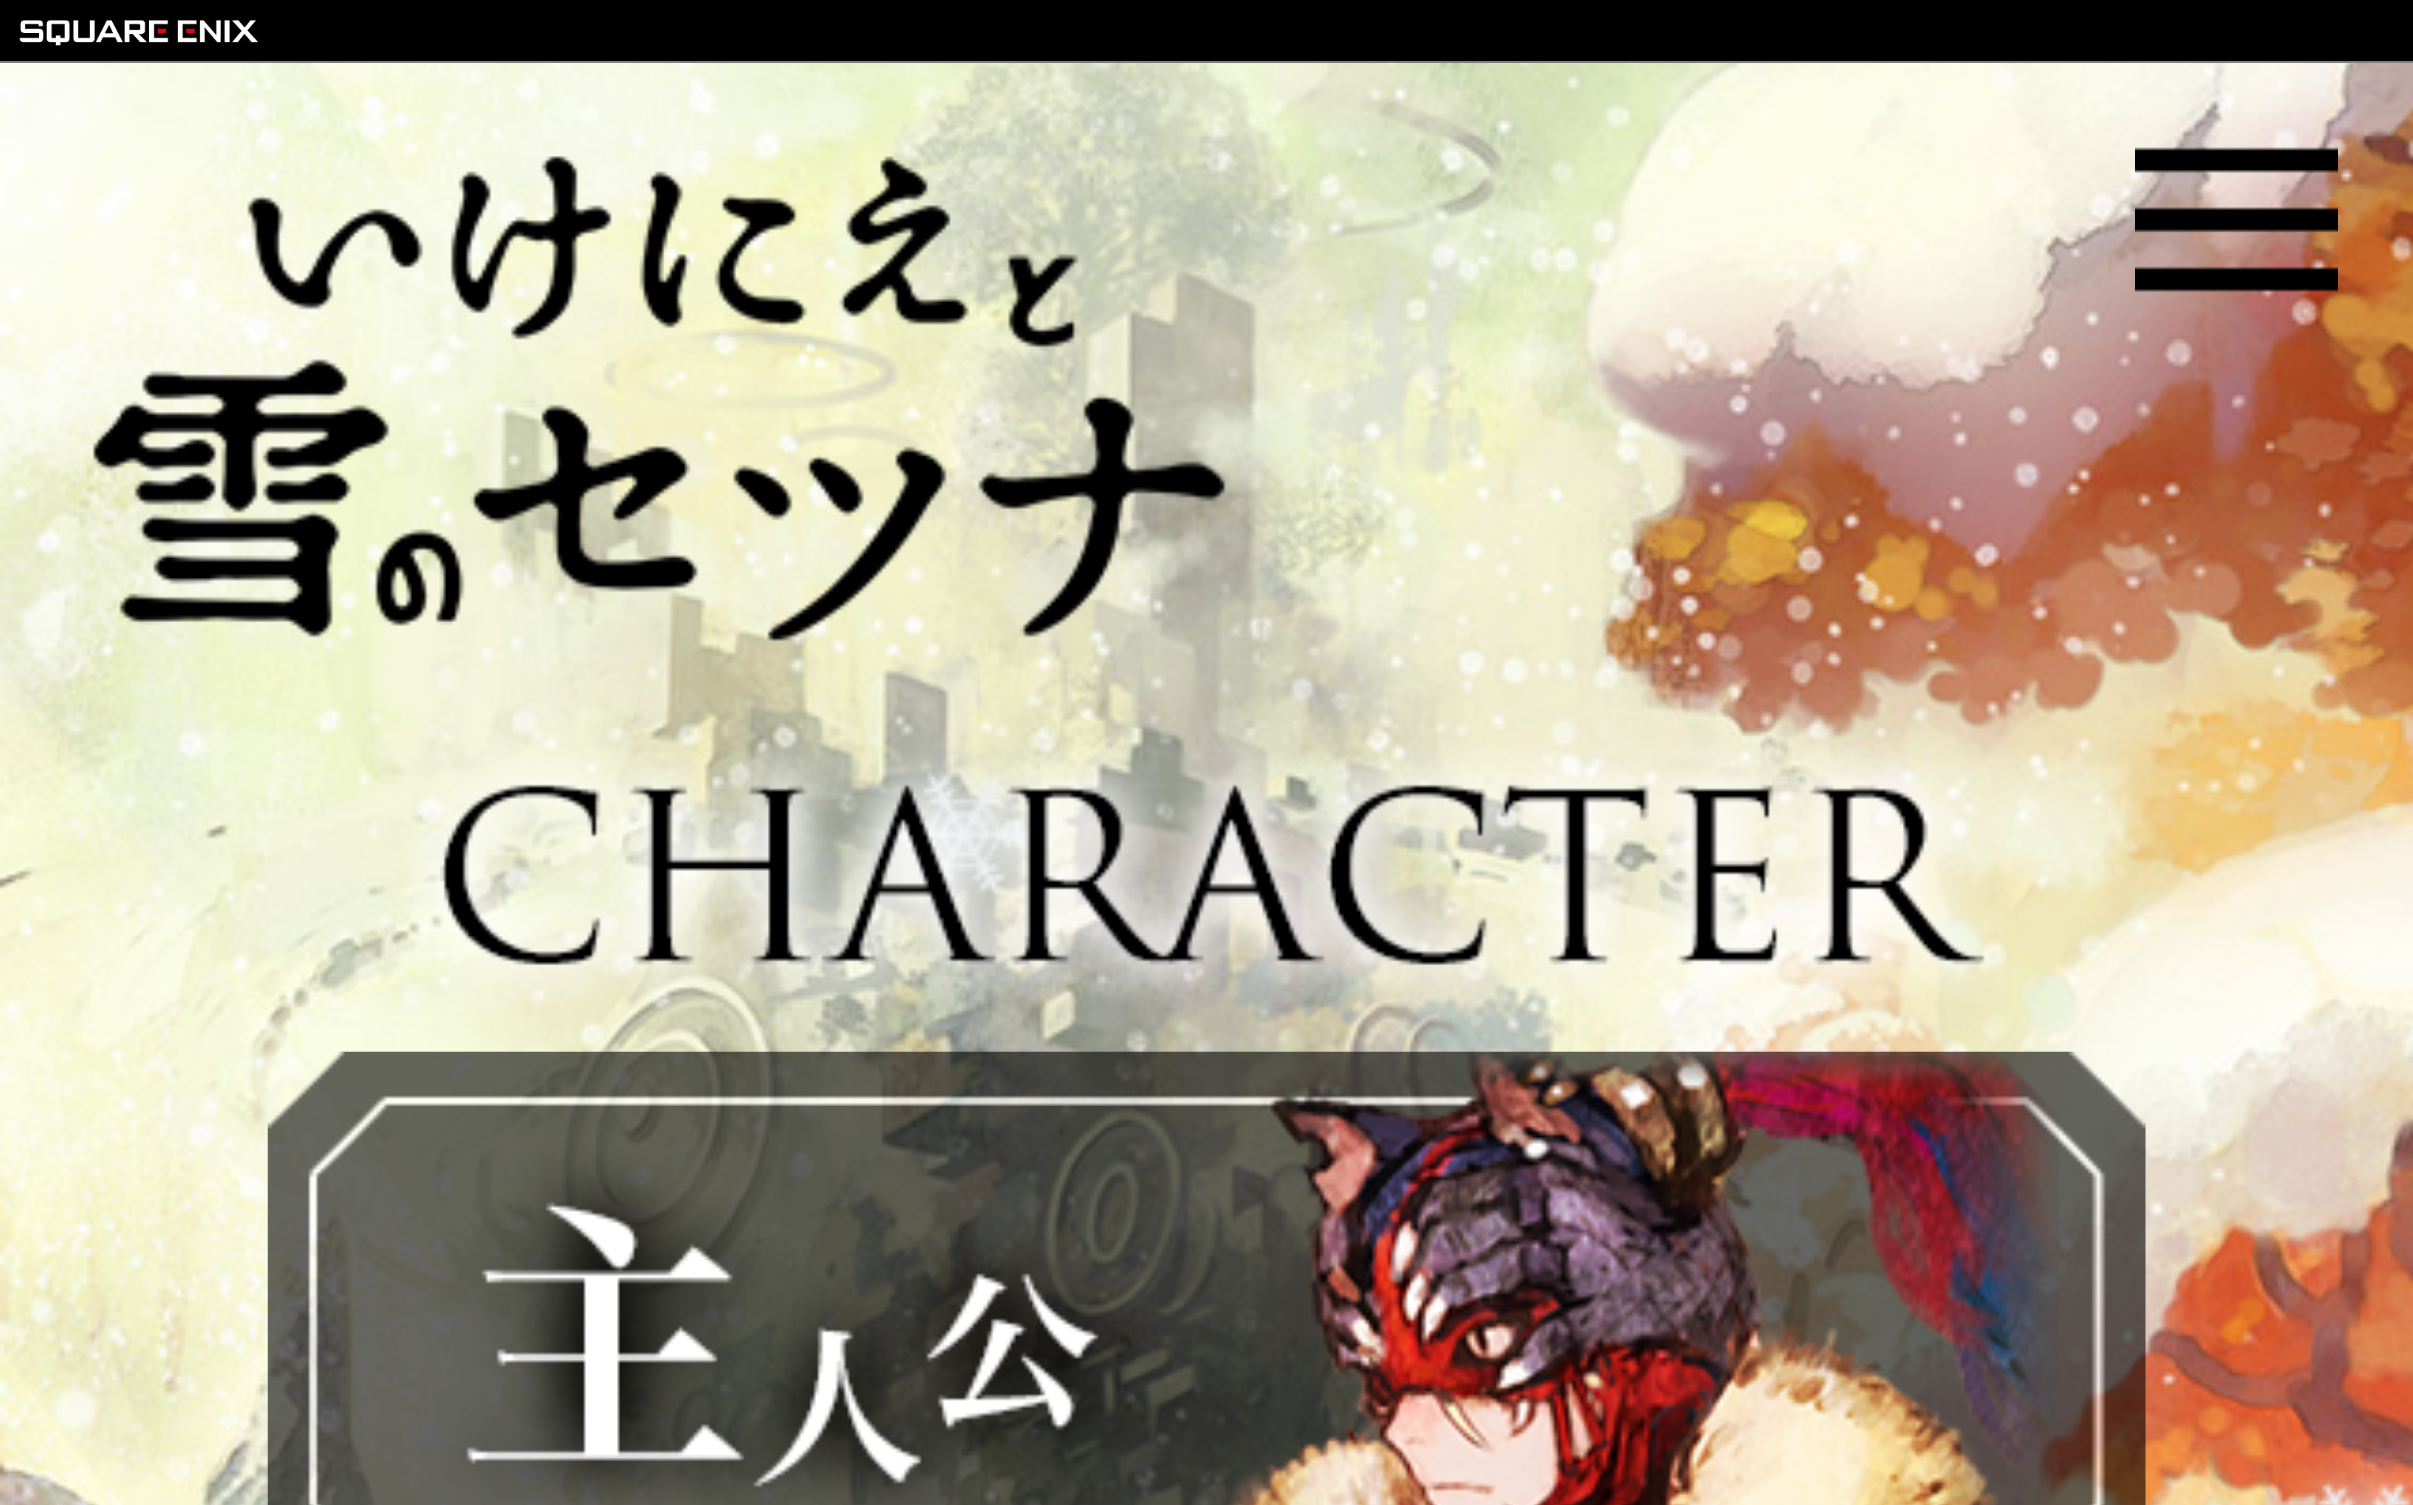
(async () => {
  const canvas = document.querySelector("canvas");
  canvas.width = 2413;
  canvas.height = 1505;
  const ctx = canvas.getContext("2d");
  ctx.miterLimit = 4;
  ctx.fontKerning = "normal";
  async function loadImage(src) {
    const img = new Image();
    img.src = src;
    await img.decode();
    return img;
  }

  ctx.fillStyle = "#ffffff";
  ctx.fillRect(0, 0, 2413, 1505);
  ctx.fillStyle = "#000000";
  ctx.fillRect(0, 0, 2413, 61);
  ctx.fillStyle = "#7e7e7e";
  ctx.fillRect(0, 61, 2413, 2);
  ctx.drawImage(await loadImage("img/1.png"), 19, 20, 239, 26);
  ctx.drawImage(await loadImage("img/2.png"), 0, 63, 2413, 1442);
  ctx.drawImage(await loadImage("img/6.png"), 50, 459, 2363, 1046);
  ctx.drawImage(await loadImage("img/3.png"), 93, 156, 1133, 485);
  ctx.drawImage(await loadImage("img/4.png"), 406, 743, 1599, 265);
  ctx.drawImage(await loadImage("img/5.png"), 2135, 147, 203, 145);
  ctx.drawImage(await loadImage("img/7.png"), 267, 1051, 1879, 454);
})();
